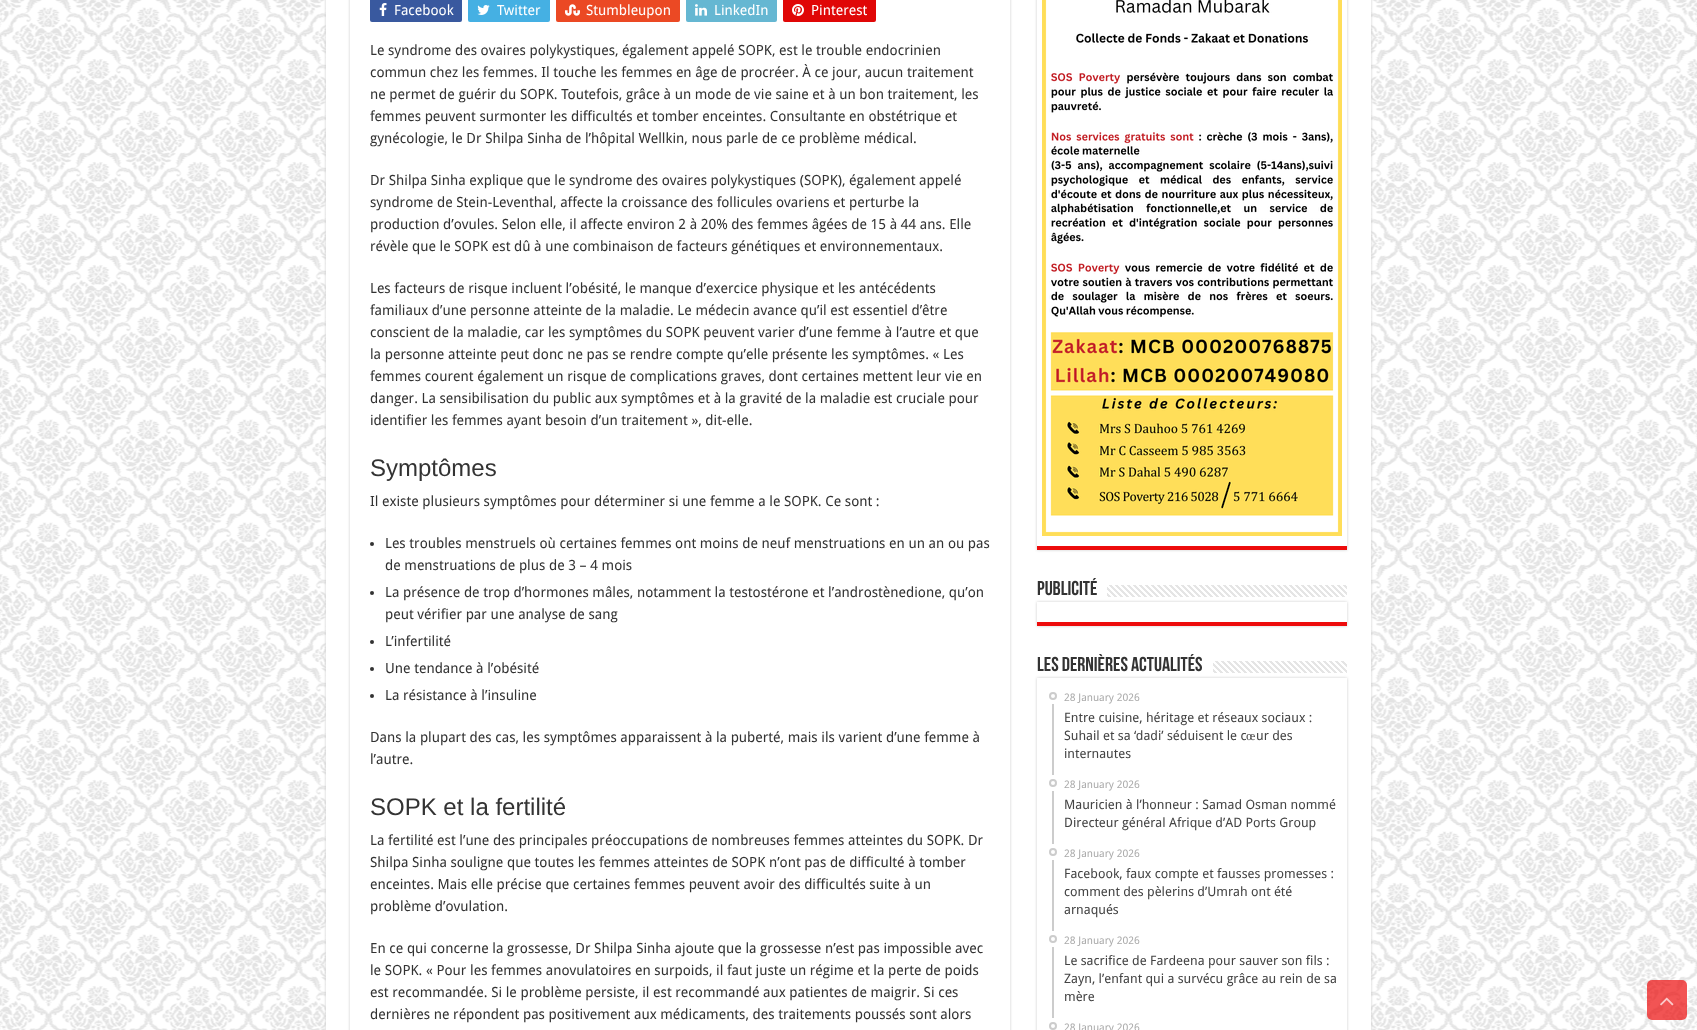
(async () => {
  const canvas = document.querySelector("canvas");
  canvas.width = 1697;
  canvas.height = 1030;
  const ctx = canvas.getContext("2d");
  ctx.miterLimit = 4;
  ctx.fontKerning = "normal";
  async function loadImage(src) {
    const img = new Image();
    img.src = src;
    await img.decode();
    return img;
  }
  let path;

  ctx.fillStyle = "#ffffff";
  ctx.fillRect(0, 0, 1697, 1030);
  ctx.drawImage(await loadImage("img/1.png"), 0, 0, 1697, 1030);
  ctx.fillStyle = "#cacaca";
  ctx.filter = "blur(1.5px)";
  ctx.beginPath();
  ctx.rect(326, -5, 1045, 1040);
  ctx.fill();
  ctx.filter = "none";
  ctx.fillStyle = "#ffffff";
  ctx.fillRect(326, 0, 1045, 1030);
  ctx.save();
  path = new Path2D("M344 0H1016V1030H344ZM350-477H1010V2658H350Z");
  ctx.clip(path, "evenodd");
  ctx.fillStyle = "#cacaca";
  ctx.filter = "blur(1.5px)";
  ctx.beginPath();
  ctx.rect(350, -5, 660, 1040);
  ctx.fill();
  ctx.filter = "none";
  ctx.restore();
  ctx.fillStyle = "#39599f";
  ctx.beginPath();
  ctx.roundRect(370, -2, 92, 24, 2);
  ctx.fill();
  ctx.drawImage(await loadImage("img/2.png"), 379, 3, 8, 13);
  ctx.fillStyle = "#45b0e3";
  ctx.beginPath();
  ctx.roundRect(468, -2, 82, 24, 2);
  ctx.fill();
  ctx.drawImage(await loadImage("img/3.png"), 477, 5, 13, 10);
  ctx.fillStyle = "#eb4924";
  ctx.beginPath();
  ctx.roundRect(556, -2, 124, 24, 2);
  ctx.fill();
  ctx.drawImage(await loadImage("img/4.png"), 565, 4, 15, 12);
  ctx.fillStyle = "#65b7d2";
  ctx.beginPath();
  ctx.roundRect(686, -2, 91, 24, 2);
  ctx.fill();
  ctx.drawImage(await loadImage("img/5.png"), 695, 4, 12, 12);
  ctx.fillStyle = "#e00707";
  ctx.beginPath();
  ctx.roundRect(783, -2, 93, 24, 2);
  ctx.fill();
  ctx.drawImage(await loadImage("img/6.png"), 792, 4, 12, 12);
  ctx.fillStyle = "#333333";
  ctx.beginPath();
  ctx.arc(372, 544, 2, 0, Math.PI * 2);
  ctx.fill();
  ctx.beginPath();
  ctx.arc(372, 593, 2, 0, Math.PI * 2);
  ctx.fill();
  ctx.beginPath();
  ctx.arc(372, 642, 2, 0, Math.PI * 2);
  ctx.fill();
  ctx.beginPath();
  ctx.arc(372, 669, 2, 0, Math.PI * 2);
  ctx.fill();
  ctx.beginPath();
  ctx.arc(372, 696, 2, 0, Math.PI * 2);
  ctx.fill();
  ctx.save();
  path = new Path2D("M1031 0H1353V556H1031ZM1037-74H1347V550H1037Z");
  ctx.clip(path, "evenodd");
  ctx.fillStyle = "#cacaca";
  ctx.filter = "blur(1.5px)";
  ctx.beginPath();
  ctx.rect(1037, -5, 310, 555);
  ctx.fill();
  ctx.filter = "none";
  ctx.restore();
  ctx.fillStyle = "#ed0c0c";
  ctx.fillRect(1037, 546, 310, 4);
  ctx.drawImage(await loadImage("img/7.png"), 1042, 0, 300, 536);
  ctx.save();
  path = new Path2D("M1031 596H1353V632H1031ZM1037 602H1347V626H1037Z");
  ctx.clip(path, "evenodd");
  ctx.fillStyle = "#cacaca";
  ctx.filter = "blur(1.5px)";
  ctx.beginPath();
  ctx.rect(1037, 602, 310, 24);
  ctx.fill();
  ctx.filter = "none";
  ctx.restore();
  ctx.drawImage(await loadImage("img/8.png"), 1107, 585, 240, 12);
  ctx.fillRect(1037, 622, 310, 4);
  ctx.save();
  path = new Path2D("M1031 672H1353V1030H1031ZM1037 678H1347V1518H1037Z");
  ctx.clip(path, "evenodd");
  ctx.fillStyle = "#cacaca";
  ctx.filter = "blur(1.5px)";
  ctx.beginPath();
  ctx.rect(1037, 678, 310, 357);
  ctx.fill();
  ctx.filter = "none";
  ctx.restore();
  ctx.drawImage(await loadImage("img/9.png"), 1213, 661, 134, 12);
  ctx.beginPath();
  ctx.arc(1053, 696, 3, 0, Math.PI * 2);
  ctx.strokeStyle = "#cccccc";
  ctx.lineWidth = 2;
  ctx.stroke();
  ctx.fillStyle = "#cccccc";
  ctx.fillRect(1052, 704, 2, 71);
  ctx.beginPath();
  ctx.arc(1053, 783, 3, 0, Math.PI * 2);
  ctx.stroke();
  ctx.fillRect(1052, 791, 2, 53);
  ctx.beginPath();
  ctx.arc(1053, 852, 3, 0, Math.PI * 2);
  ctx.stroke();
  ctx.fillRect(1052, 860, 2, 71);
  ctx.beginPath();
  ctx.arc(1053, 939, 3, 0, Math.PI * 2);
  ctx.stroke();
  ctx.fillRect(1052, 947, 2, 71);
  ctx.beginPath();
  ctx.arc(1053, 1026, 3, 0, Math.PI * 2);
  ctx.stroke();
  ctx.fillStyle = "rgba(237, 12, 12, 0.7)";
  ctx.beginPath();
  ctx.roundRect(1647, 980, 40, 40, 5);
  ctx.fill();
  ctx.drawImage(await loadImage("img/10.png"), 1660, 997, 14, 9);
  ctx.font = "14px Droid Sans";
  ctx.fillStyle = "#ffffff";
  for (const [text, x, y] of [
    ["Facebook", 394, 15],
    ["Twitter", 497, 15],
    ["Stumbleupon", 586, 15],
    ["LinkedIn", 714, 15],
    ["Pinterest", 811, 15],
  ]) {
    ctx.fillText(text, x, y);
  }
  ctx.fillStyle = "#333333";
  for (const [text, x, y] of [
    ["Le syndrome des ovaires polykystiques, également appelé SOPK, est le trouble endocrinien", 370, 55],
    ["commun chez les femmes. Il touche les femmes en âge de procréer. À ce jour, aucun traitement", 370, 77],
    ["ne permet de guérir du SOPK. Toutefois, grâce à un mode de vie saine et à un bon traitement, les", 370, 99],
    ["femmes peuvent surmonter les difficultés et tomber enceintes. Consultante en obstétrique et", 370, 121],
    ["gynécologie, le Dr Shilpa Sinha de l’hôpital Wellkin, nous parle de ce problème médical.", 370, 143],
    ["Dr Shilpa Sinha explique que le syndrome des ovaires polykystiques (SOPK), également appelé", 370, 185],
    ["syndrome de Stein-Leventhal, affecte la croissance des follicules ovariens et perturbe la", 370, 207],
    ["production d’ovules. Selon elle, il affecte environ 2 à 20% des femmes âgées de 15 à 44 ans. Elle", 370, 229],
    ["révèle que le SOPK est dû à une combinaison de facteurs génétiques et environnementaux.", 370, 251],
    ["Les facteurs de risque incluent l’obésité, le manque d’exercice physique et les antécédents", 370, 293],
    ["familiaux d’une personne atteinte de la maladie. Le médecin avance qu’il est essentiel d’être", 370, 315],
    ["conscient de la maladie, car les symptômes du SOPK peuvent varier d’une femme à l’autre et que", 370, 337],
    ["la personne atteinte peut donc ne pas se rendre compte qu’elle présente les symptômes. « Les", 370, 359],
    ["femmes courent également un risque de complications graves, dont certaines mettent leur vie en", 370, 381],
    ["danger. La sensibilisation du public aux symptômes et à la gravité de la maladie est cruciale pour", 370, 403],
    ["identifier les femmes ayant besoin d’un traitement », dit-elle.", 370, 425],
  ]) {
    ctx.fillText(text, x, y);
  }
  ctx.font = "24px Liberation Sans";
  ctx.fillText("Symptômes", 370, 476);
  ctx.font = "14px Droid Sans";
  for (const [text, x, y] of [
    ["Il existe plusieurs symptômes pour déterminer si une femme a le SOPK. Ce sont :", 370, 506],
    ["Les troubles menstruels où certaines femmes ont moins de neuf menstruations en un an ou pas", 385, 548],
    ["de menstruations de plus de 3 – 4 mois", 385, 570],
    ["La présence de trop d’hormones mâles, notamment la testostérone et l’androstènedione, qu’on", 385, 597],
    ["peut vérifier par une analyse de sang", 385, 619],
    ["L’infertilité", 385, 646],
    ["Une tendance à l’obésité", 385, 673],
    ["La résistance à l’insuline", 385, 700],
    ["Dans la plupart des cas, les symptômes apparaissent à la puberté, mais ils varient d’une femme à", 370, 742],
    ["l’autre.", 370, 764],
  ]) {
    ctx.fillText(text, x, y);
  }
  ctx.font = "24px Liberation Sans";
  ctx.fillText("SOPK et la fertilité", 370, 815);
  ctx.font = "14px Droid Sans";
  for (const [text, x, y] of [
    ["La fertilité est l’une des principales préoccupations de nombreuses femmes atteintes du SOPK. Dr", 370, 845],
    ["Shilpa Sinha souligne que toutes les femmes atteintes de SOPK n’ont pas de difficulté à tomber", 370, 867],
    ["enceintes. Mais elle précise que certaines femmes peuvent avoir des difficultés suite à un", 370, 889],
    ["problème d’ovulation.", 370, 911],
    ["En ce qui concerne la grossesse, Dr Shilpa Sinha ajoute que la grossesse n’est pas impossible avec", 370, 953],
    ["le SOPK. « Pour les femmes anovulatoires en surpoids, il faut juste un régime et la perte de poids", 370, 975],
    ["est recommandée. Si le problème persiste, il est recommandé aux patientes de maigrir. Si ces", 370, 997],
    ["dernières ne répondent pas positivement aux médicaments, des traitements poussés sont alors", 370, 1019],
  ]) {
    ctx.fillText(text, x, y);
  }
  ctx.font = "bold 20px Bebas Neue";
  ctx.fillText("Publicité", 1037, 595);
  ctx.fillText("Les dernières actualités", 1037, 671);
  ctx.font = "10.5px Droid Sans";
  ctx.fillStyle = "#aaaaaa";
  ctx.fillText("28 January 2026", 1064, 701);
  ctx.font = "13px Droid Sans";
  ctx.fillStyle = "#444444";
  ctx.fillText("Entre cuisine, héritage et réseaux sociaux :", 1064, 722);
  ctx.fillText("Suhail et sa ‘dadi’ séduisent le c", 1064, 740);
  ctx.font = "13px Liberation Serif";
  ctx.fillText("œ", 1246, 740);
  ctx.font = "13px Droid Sans";
  ctx.fillText("ur des", 1256, 740);
  ctx.fillText("internautes", 1064, 758);
  ctx.font = "10.5px Droid Sans";
  ctx.fillStyle = "#aaaaaa";
  ctx.fillText("28 January 2026", 1064, 788);
  ctx.font = "13px Droid Sans";
  ctx.fillStyle = "#444444";
  ctx.fillText("Mauricien à l’honneur : Samad Osman nommé", 1064, 809);
  ctx.fillText("Directeur général Afrique d’AD Ports Group", 1064, 827);
  ctx.font = "10.5px Droid Sans";
  ctx.fillStyle = "#aaaaaa";
  ctx.fillText("28 January 2026", 1064, 857);
  ctx.font = "13px Droid Sans";
  ctx.fillStyle = "#444444";
  for (const [text, x, y] of [
    ["Facebook, faux compte et fausses promesses :", 1064, 878],
    ["comment des pèlerins d’Umrah ont été", 1064, 896],
    ["arnaqués", 1064, 914],
  ]) {
    ctx.fillText(text, x, y);
  }
  ctx.font = "10.5px Droid Sans";
  ctx.fillStyle = "#aaaaaa";
  ctx.fillText("28 January 2026", 1064, 944);
  ctx.font = "13px Droid Sans";
  ctx.fillStyle = "#444444";
  for (const [text, x, y] of [
    ["Le sacrifice de Fardeena pour sauver son fils :", 1064, 965],
    ["Zayn, l’enfant qui a survécu grâce au rein de sa", 1064, 983],
    ["mère", 1064, 1001],
  ]) {
    ctx.fillText(text, x, y);
  }
  ctx.font = "10.5px Droid Sans";
  ctx.fillStyle = "#aaaaaa";
  ctx.fillText("28 January 2026", 1064, 1031);
})();
